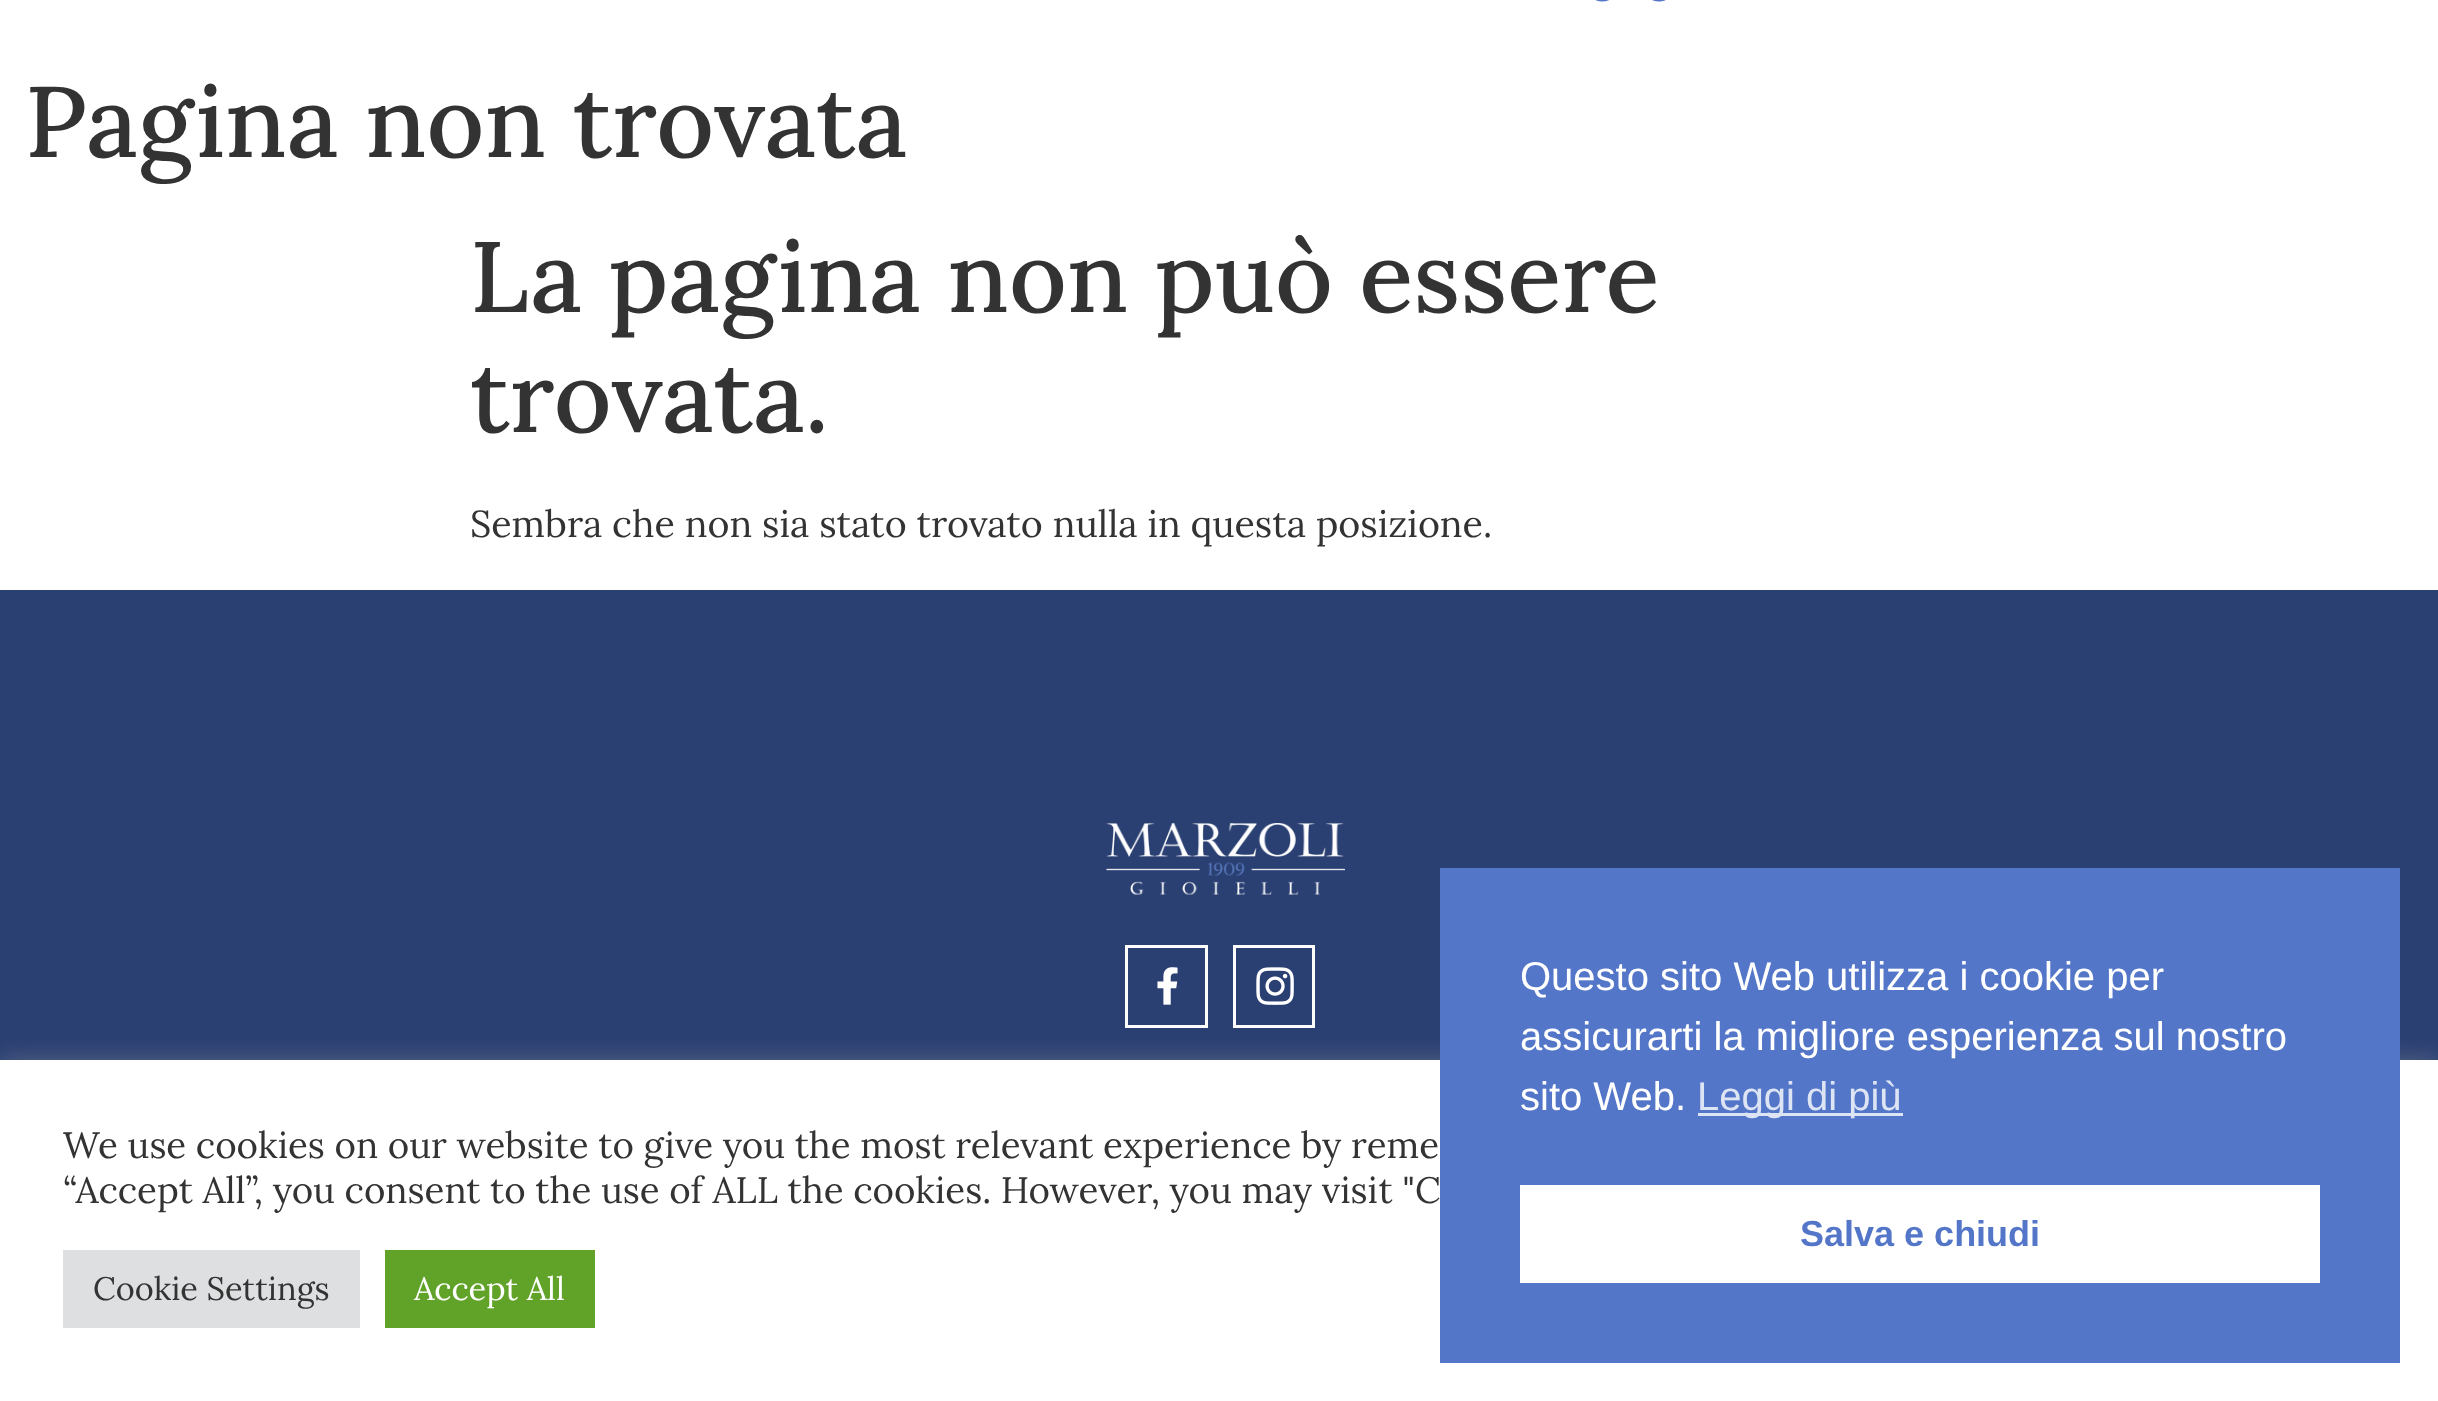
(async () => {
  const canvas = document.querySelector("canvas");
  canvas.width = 2438;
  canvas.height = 1401;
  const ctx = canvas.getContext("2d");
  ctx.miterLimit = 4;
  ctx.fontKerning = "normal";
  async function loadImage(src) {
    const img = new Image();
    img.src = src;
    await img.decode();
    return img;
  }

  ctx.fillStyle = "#ffffff";
  ctx.fillRect(0, 0, 2438, 1401);
  ctx.drawImage(await loadImage("img/1.png"), 1595, 0, 71, 2);
  ctx.fillStyle = "#2a3f72";
  ctx.fillRect(0, 590, 2438, 470);
  ctx.drawImage(await loadImage("img/2.png"), 1106, 823, 239, 72);
  ctx.strokeStyle = "#ffffff";
  ctx.lineWidth = 3;
  ctx.strokeRect(1126.5, 946.5, 80, 80);
  ctx.drawImage(await loadImage("img/3.png"), 1157, 967, 21, 38);
  ctx.strokeRect(1234.5, 946.5, 79, 80);
  ctx.drawImage(await loadImage("img/4.png"), 1256, 967, 38, 38);
  ctx.fillStyle = "rgba(172, 171, 171, 0.3)";
  ctx.filter = "blur(12.5px)";
  ctx.beginPath();
  ctx.rect(0, 1058, 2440, 342);
  ctx.fill();
  ctx.filter = "none";
  for (const [x, y, w, h, color] of [
    [0, 1060, 2438, 341, "#ffffff"],
    [63, 1250, 297, 78, "#dedfe0"],
    [385, 1250, 210, 78, "#61a229"],
    [1440, 868, 960, 495, "#5476c8"],
    [1698, 1113, 205, 3, "#dde4f4"],
    [1520, 1185, 800, 98, "#ffffff"],
  ]) {
    ctx.fillStyle = color;
    ctx.fillRect(x, y, w, h);
  }
  ctx.font = "500 100px Lora";
  ctx.fillStyle = "#333333";
  for (const [text, x, y] of [
    ["Pagina non trovata", 25, 157],
    ["La pagina non può essere", 470, 312],
    ["trovata.", 470, 432],
  ]) {
    ctx.fillText(text, x, y);
  }
  ctx.font = "37.5px Lora";
  ctx.fillText("Sembra che non sia stato trovato nulla in questa posizione.", 470, 537);
  ctx.font = "36.65px Lora";
  ctx.fillText("We use cookies on our website to give you the most relevant experience by reme", 63, 1158);
  ctx.fillText("“Accept All”, you consent to the use of ALL the cookies. However, you may visit \"C", 63, 1203);
  ctx.font = "32.5px Lora";
  ctx.fillText("Cookie Settings", 93, 1300);
  ctx.fillStyle = "#ffffff";
  ctx.fillText("Accept All", 414, 1300);
  ctx.font = "40px Liberation Sans";
  for (const [text, x, y] of [
    ["Questo sito Web utilizza i cookie per", 1520, 990],
    ["assicurarti la migliore esperienza sul nostro", 1520, 1050],
    ["sito Web.", 1520, 1110],
  ]) {
    ctx.fillText(text, x, y);
  }
  ctx.fillStyle = "#dde4f4";
  ctx.fillText("Leggi di più", 1697, 1110);
  ctx.font = "bold 36px Liberation Sans";
  ctx.fillStyle = "#5476c8";
  ctx.fillText("Salva e chiudi", 1800, 1246);
})();
